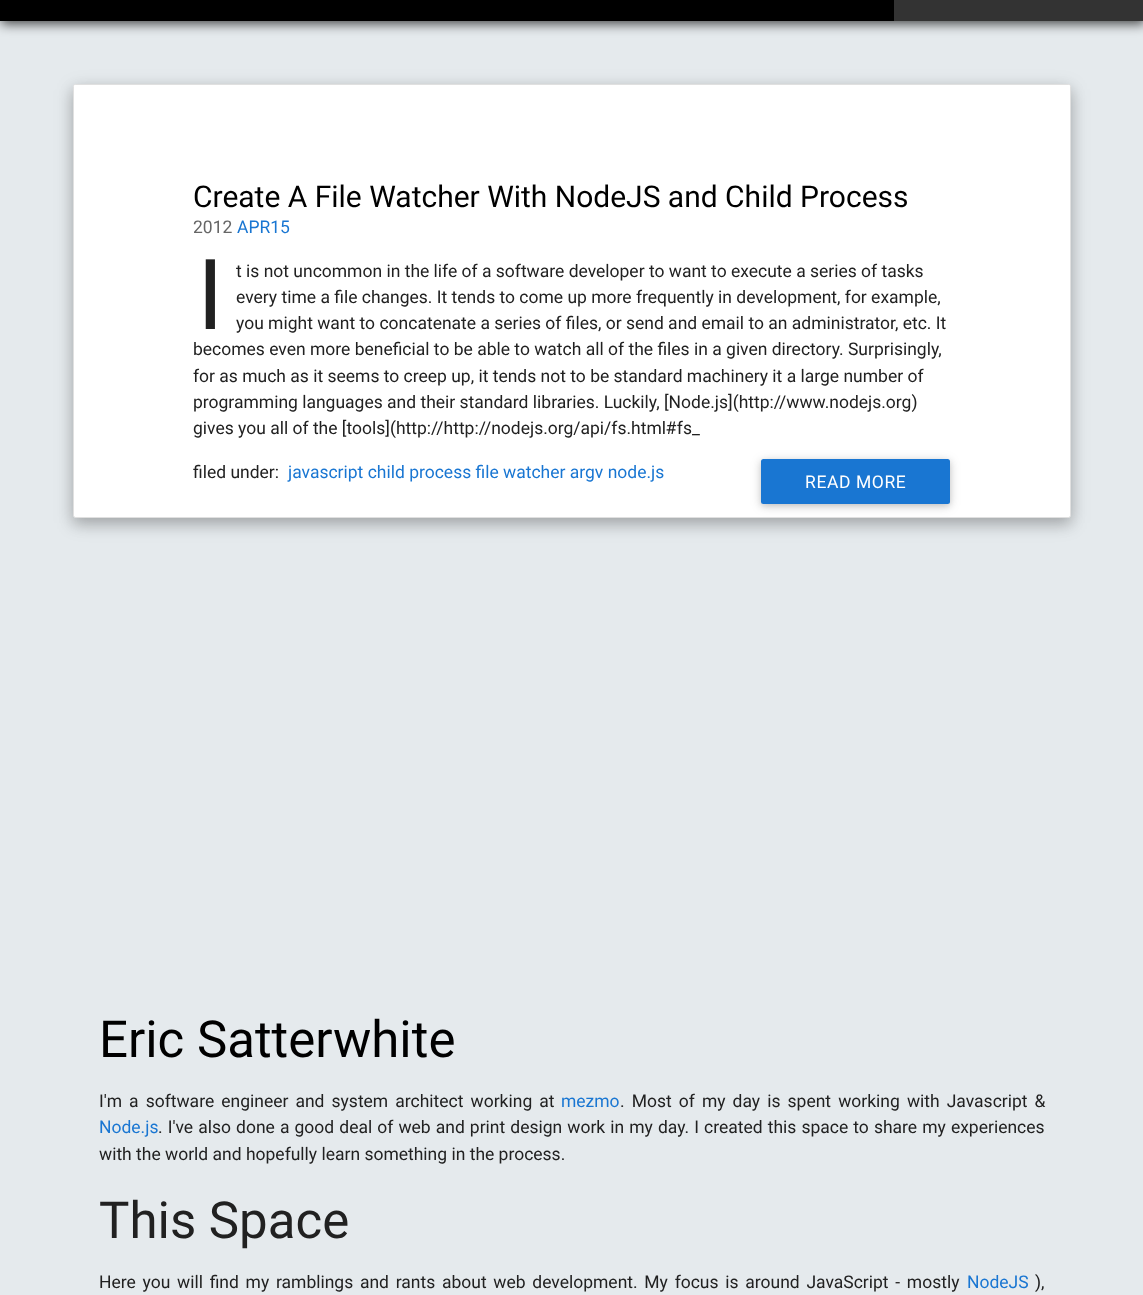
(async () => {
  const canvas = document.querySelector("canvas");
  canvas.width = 1143;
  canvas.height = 1295;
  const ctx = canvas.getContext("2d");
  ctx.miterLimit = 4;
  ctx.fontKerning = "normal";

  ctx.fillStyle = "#e5eaed";
  ctx.fillRect(0, 0, 1143, 1295);
  ctx.fillStyle = "rgba(0, 0, 0, 0.7)";
  ctx.filter = "blur(6px)";
  ctx.beginPath();
  ctx.rect(1, -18, 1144, 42);
  ctx.fill();
  ctx.filter = "none";
  ctx.fillStyle = "#000000";
  ctx.fillRect(0, 0, 894, 21);
  ctx.fillStyle = "#333333";
  ctx.fillRect(894, 0, 249, 21);
  ctx.fillStyle = "rgba(0, 0, 0, 0.15)";
  ctx.filter = "blur(9.5px)";
  ctx.beginPath();
  ctx.roundRect(73, 89, 998, 434, 2.5);
  ctx.fill();
  ctx.filter = "none";
  ctx.fillStyle = "rgba(0, 0, 0, 0.18)";
  ctx.filter = "blur(7px)";
  ctx.beginPath();
  ctx.roundRect(73, 90, 998, 434, 2.5);
  ctx.fill();
  ctx.filter = "none";
  ctx.fillStyle = "#ffffff";
  ctx.beginPath();
  ctx.roundRect(73.5, 84.5, 997, 433, 2);
  ctx.fill();
  ctx.strokeStyle = "#e0e0e0";
  ctx.stroke();
  ctx.beginPath();
  ctx.roundRect(74, 85, 996, 431, 1);
  ctx.fill();
  ctx.fillStyle = "rgba(0, 0, 0, 0.12)";
  ctx.filter = "blur(6px)";
  ctx.beginPath();
  ctx.roundRect(761, 461, 189, 45, 2.5);
  ctx.fill();
  ctx.filter = "none";
  ctx.fillStyle = "rgba(0, 0, 0, 0.16)";
  ctx.filter = "blur(3px)";
  ctx.beginPath();
  ctx.roundRect(761, 461, 189, 45, 2.5);
  ctx.fill();
  ctx.filter = "none";
  ctx.fillStyle = "#1976d2";
  ctx.beginPath();
  ctx.roundRect(761, 459, 189, 45, 2.5);
  ctx.fill();
  ctx.font = "30px Roboto";
  ctx.fillStyle = "#000000";
  ctx.fillText("Create A File Watcher With NodeJS and Child Process", 193, 207);
  ctx.font = "17.5px Roboto";
  ctx.fillStyle = "#666666";
  ctx.fillText("2012", 193, 233);
  ctx.fillStyle = "#1976d2";
  ctx.fillText("APR15", 237, 233);
  ctx.font = "98px Roboto";
  ctx.fillStyle = "#212121";
  ctx.fillText("I", 197, 329);
  ctx.font = "17.5px Roboto";
  for (const [text, x, y] of [
    ["t is not uncommon in the life of a software developer to want to execute a series of tasks", 236, 277],
    ["every time a file changes. It tends to come up more frequently in development, for example,", 236, 303],
    ["you might want to concatenate a series of files, or send and email to an administrator, etc. It", 236, 329],
    ["becomes even more beneficial to be able to watch all of the files in a given directory. Surprisingly,", 193, 355],
    ["for as much as it seems to creep up, it tends not to be standard machinery it a large number of", 193, 382],
    ["programming languages and their standard libraries. Luckily, [Node.js](http://www.nodejs.org)", 193, 408],
    ["gives you all of the [tools](http://http://nodejs.org/api/fs.html#fs_", 193, 434],
  ]) {
    ctx.fillText(text, x, y);
  }
  ctx.letterSpacing = "0.6px";
  ctx.fillStyle = "#ffffff";
  ctx.fillText("READ MORE", 805, 488);
  ctx.letterSpacing = "0px";
  ctx.fillStyle = "#212121";
  ctx.fillText("filed under:", 193, 478);
  ctx.fillStyle = "#1976d2";
  ctx.fillText("javascript child process file watcher argv node.js", 288, 478);
  ctx.font = "51px Roboto";
  ctx.fillStyle = "#000000";
  ctx.fillText("Eric Satterwhite", 99, 1057);
  ctx.wordSpacing = "2.75px";
  ctx.font = "17.5px Roboto";
  ctx.fillStyle = "#212121";
  ctx.fillText("I'm a software engineer and system architect working at", 99, 1107);
  ctx.wordSpacing = "0px";
  ctx.fillStyle = "#1976d2";
  ctx.fillText("mezmo", 561, 1107);
  ctx.wordSpacing = "2.75px";
  ctx.fillStyle = "#212121";
  ctx.fillText(". Most of my day is spent working with Javascript &", 620, 1107);
  ctx.wordSpacing = "0px";
  ctx.fillStyle = "#1976d2";
  ctx.fillText("Node.js", 99, 1133);
  ctx.wordSpacing = "0.75px";
  ctx.fillStyle = "#212121";
  ctx.fillText(". I've also done a good deal of web and print design work in my day. I created this space to share my experiences", 158, 1133);
  ctx.wordSpacing = "0px";
  ctx.fillText("with the world and hopefully learn something in the process.", 99, 1160);
  ctx.font = "51px Roboto";
  ctx.fillText("This Space", 99, 1238);
  ctx.wordSpacing = "2.4px";
  ctx.font = "17.5px Roboto";
  ctx.fillText("Here you will find my ramblings and rants about web development. My focus is around JavaScript - mostly", 99, 1288);
  ctx.wordSpacing = "0px";
  ctx.fillStyle = "#1976d2";
  ctx.fillText("NodeJS", 967, 1288);
  ctx.fillStyle = "#212121";
  ctx.fillText("),", 1035, 1288);
})();
